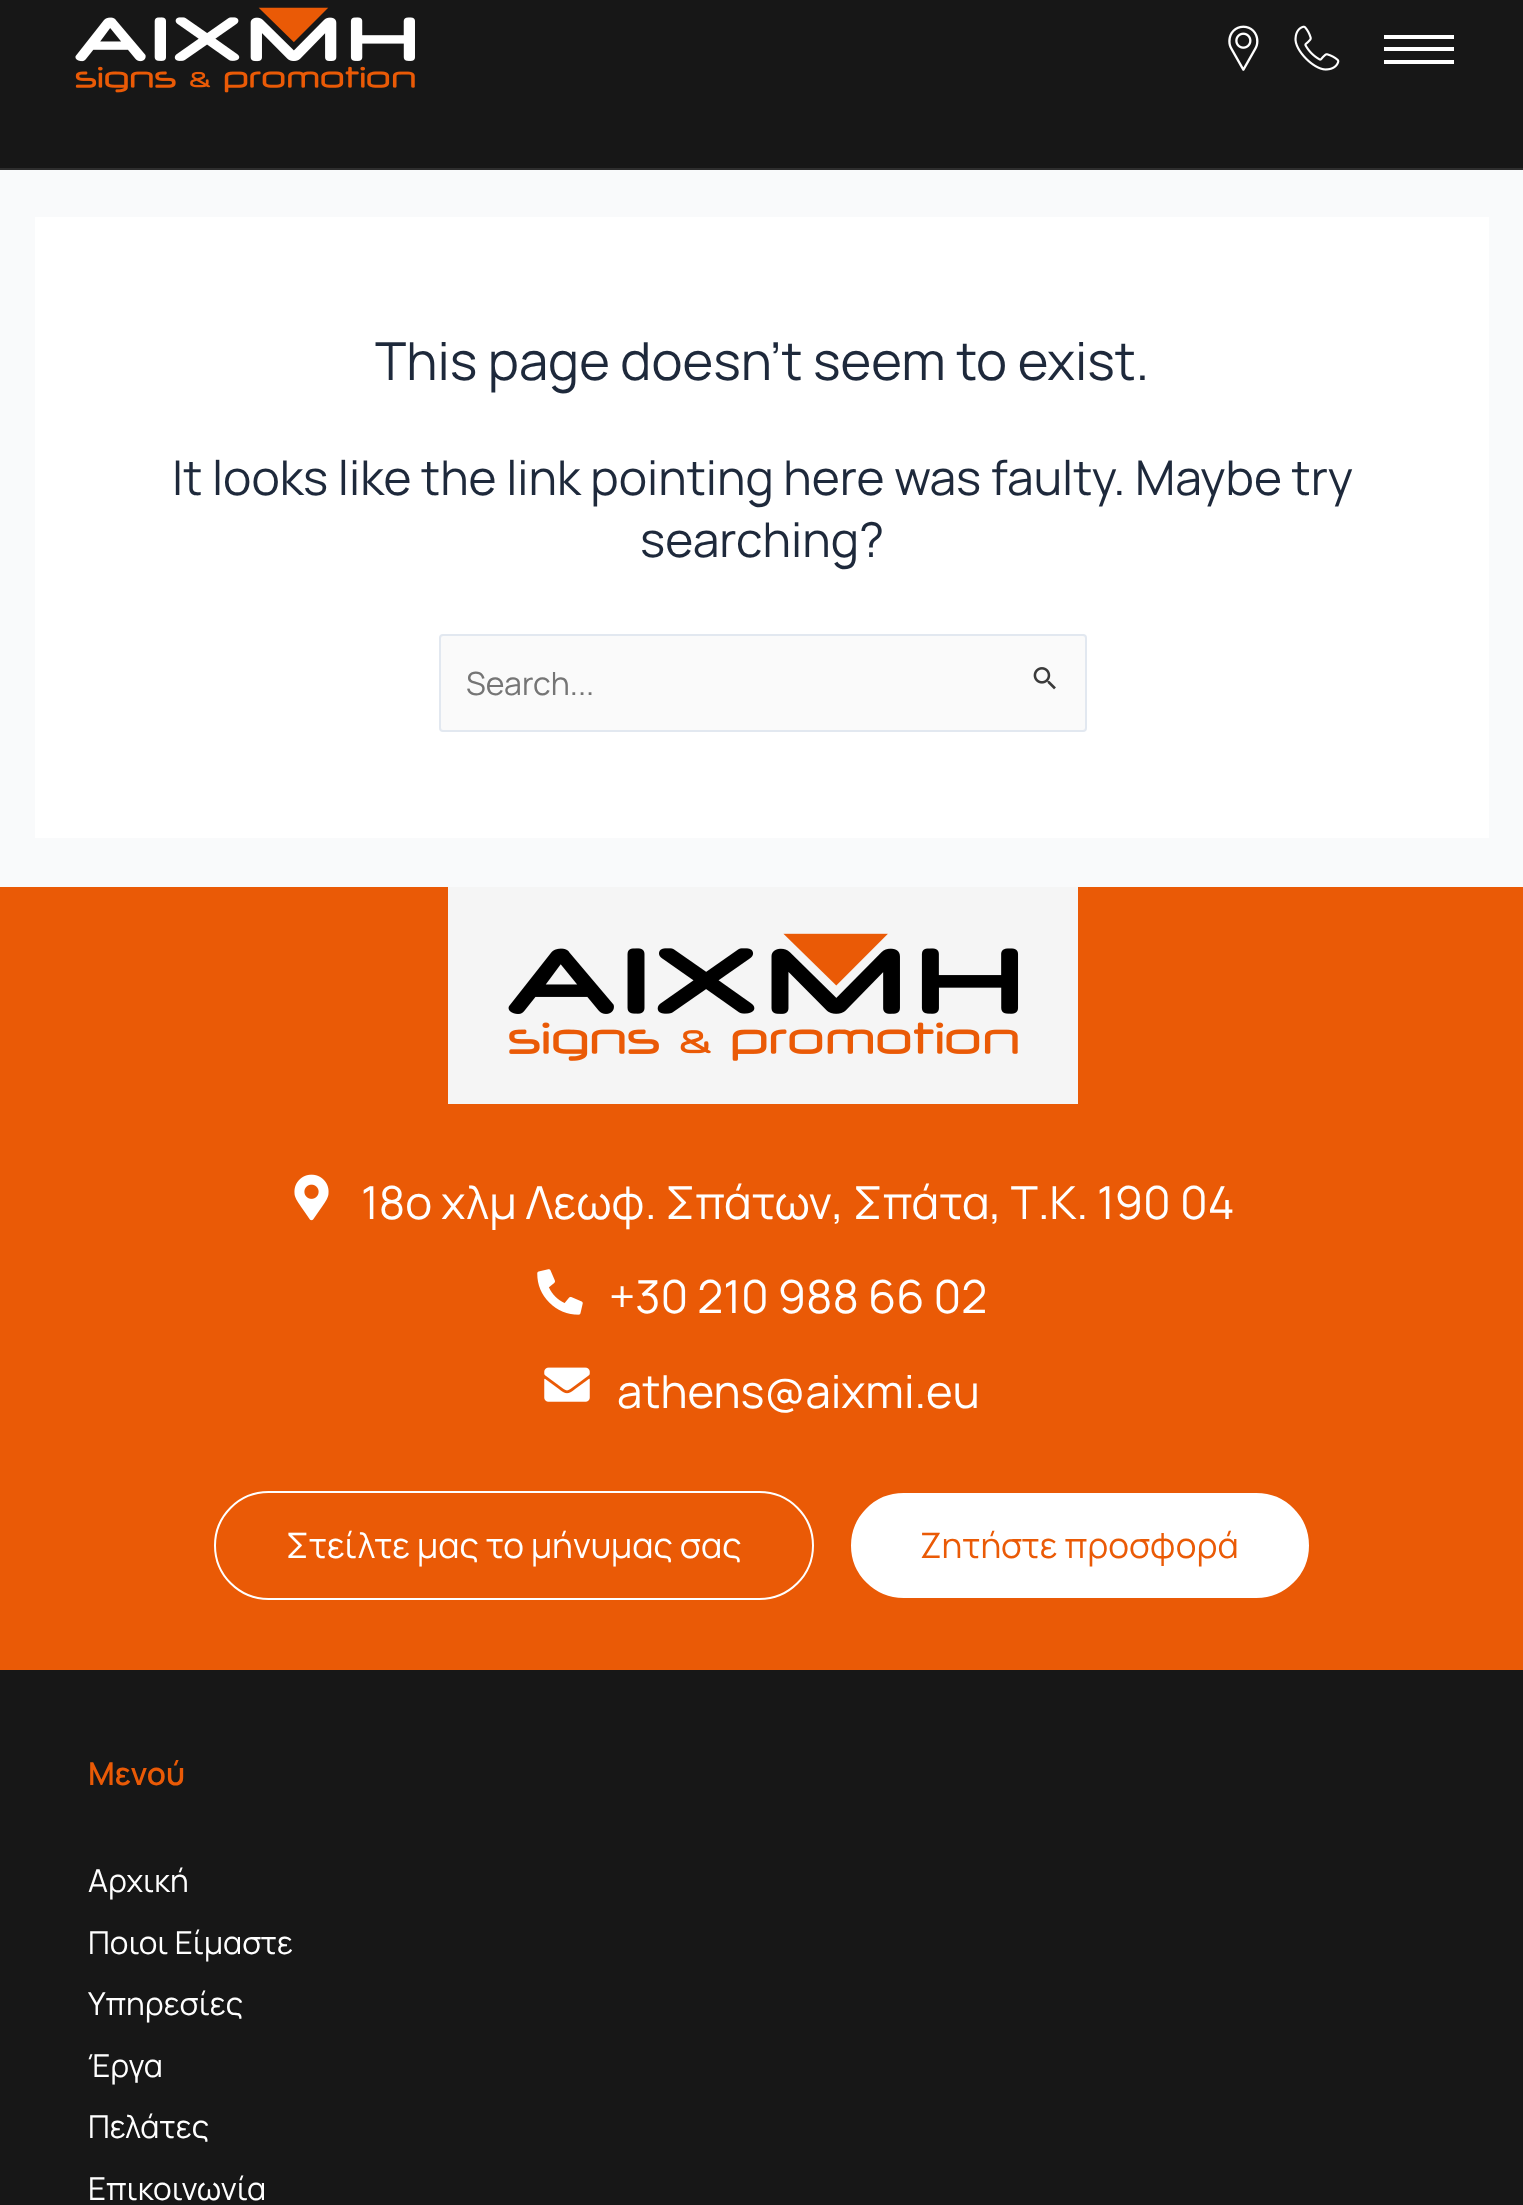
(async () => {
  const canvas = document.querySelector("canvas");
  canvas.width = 1523;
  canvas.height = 2205;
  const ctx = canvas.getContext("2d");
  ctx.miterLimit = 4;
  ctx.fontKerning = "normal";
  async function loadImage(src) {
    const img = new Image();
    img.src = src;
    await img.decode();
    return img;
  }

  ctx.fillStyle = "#f9fafb";
  ctx.fillRect(0, 0, 1523, 2205);
  ctx.fillStyle = "#171717";
  ctx.fillRect(0, 0, 1523, 168);
  ctx.fillStyle = "#2e2e2e";
  ctx.fillRect(0, 168, 1523, 2);
  ctx.drawImage(await loadImage("img/1.png"), 75, 7, 340, 86);
  ctx.drawImage(await loadImage("img/2.png"), 1228, 25, 31, 46);
  ctx.drawImage(await loadImage("img/3.png"), 1294, 25, 46, 46);
  for (const [x, y, w, h, color] of [
    [1384, 47, 70, 4, "#ffffff"],
    [1384, 35, 70, 4, "#ffffff"],
    [1384, 60, 70, 4, "#ffffff"],
    [35, 217, 1454, 621, "#ffffff"],
  ]) {
    ctx.fillStyle = color;
    ctx.fillRect(x, y, w, h);
  }
  ctx.fillStyle = "#fafafa";
  ctx.beginPath();
  ctx.roundRect(440, 635, 646, 96, 3);
  ctx.fill();
  ctx.strokeStyle = "#e2e8f0";
  ctx.lineWidth = 2;
  ctx.stroke();
  ctx.drawImage(await loadImage("img/4.png"), 1033, 667, 23, 23);
  ctx.fillStyle = "#ea5a06";
  ctx.fillRect(0, 887, 1523, 783);
  ctx.fillStyle = "#f5f5f5";
  ctx.fillRect(448, 887, 630, 217);
  ctx.drawImage(await loadImage("img/5.png"), 508, 933, 511, 128);
  ctx.drawImage(await loadImage("img/6.png"), 294, 1174, 35, 47);
  ctx.drawImage(await loadImage("img/7.png"), 537, 1269, 46, 46);
  ctx.drawImage(await loadImage("img/8.png"), 544, 1367, 46, 35);
  ctx.beginPath();
  ctx.roundRect(215, 1492, 598, 107, 53.5);
  ctx.strokeStyle = "#ffffff";
  ctx.stroke();
  ctx.fillStyle = "#ffffff";
  ctx.beginPath();
  ctx.roundRect(850, 1492, 460, 107, 53.5);
  ctx.fill();
  ctx.strokeStyle = "#ea5a06";
  ctx.stroke();
  ctx.fillStyle = "#171717";
  ctx.fillRect(0, 1670, 1523, 535);
  ctx.font = "52.5px Manrope";
  ctx.fillStyle = "#1e293b";
  ctx.fillText("This page doesn't seem to exist.", 375, 380);
  ctx.font = "47.9px Manrope";
  ctx.fillText("It looks like the link pointing here was faulty. Maybe try", 172, 495);
  ctx.fillText("searching?", 640, 557);
  ctx.font = "32px Manrope";
  ctx.fillStyle = "#757575";
  ctx.fillText("Search...", 466, 695);
  ctx.font = "45.5px Manrope";
  ctx.fillStyle = "#ffffff";
  for (const [text, x, y] of [
    ["18ο χλμ Λεωφ. Σπάτων, Σπάτα, Τ.Κ. 190 04", 361, 1219],
    ["+30 210 988 66 02", 609, 1313],
    ["athens@aixmi.eu", 617, 1408],
  ]) {
    ctx.fillText(text, x, y);
  }
  ctx.font = "35px Manrope";
  ctx.fillText("Στείλτε μας το μήνυμας σας", 286, 1558);
  ctx.fillStyle = "#ea5a06";
  ctx.fillText("Ζητήστε προσφορά", 920, 1558);
  ctx.font = "600 31.5px Manrope";
  ctx.fillText("Μενού", 88, 1785);
  ctx.font = "31.5px Manrope";
  ctx.fillStyle = "#ffffff";
  for (const [text, x, y] of [
    ["Αρχική", 88, 1892],
    ["Ποιοι Είμαστε", 88, 1954],
    ["Υπηρεσίες", 88, 2015],
    ["Έργα", 88, 2077],
    ["Πελάτες", 88, 2138],
    ["Επικοινωνία", 88, 2200],
  ]) {
    ctx.fillText(text, x, y);
  }
})();
